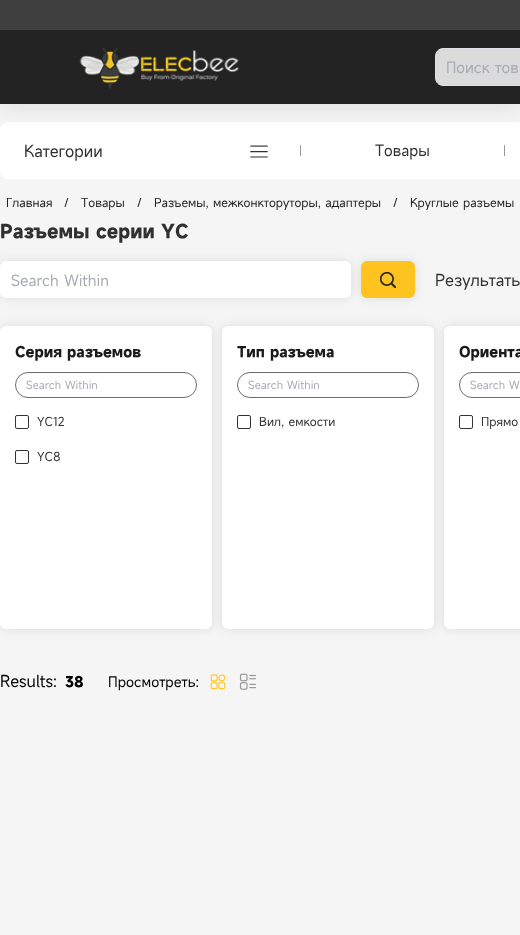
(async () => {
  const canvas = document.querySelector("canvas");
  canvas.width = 520;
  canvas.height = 935;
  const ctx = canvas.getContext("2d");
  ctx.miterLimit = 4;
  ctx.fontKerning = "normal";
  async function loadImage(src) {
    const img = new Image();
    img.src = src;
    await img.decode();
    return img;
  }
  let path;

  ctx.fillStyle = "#f5f5f5";
  ctx.fillRect(0, 0, 520, 935);
  ctx.fillStyle = "#ffffff";
  ctx.beginPath();
  ctx.roundRect(0, 122, 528, 57, 8);
  ctx.fill();
  ctx.fillStyle = "rgba(28, 31, 35, 0.1)";
  ctx.filter = "blur(12px)";
  ctx.beginPath();
  ctx.rect(0, 4, 520, 104);
  ctx.fill();
  ctx.filter = "none";
  ctx.fillStyle = "#3f3f3f";
  ctx.fillRect(0, 0, 520, 30);
  ctx.fillStyle = "#232323";
  ctx.fillRect(0, 30, 520, 74);
  ctx.drawImage(await loadImage("img/1.png"), 79, 48, 160, 41);
  ctx.fillStyle = "#dbdbdb";
  path = new Path2D("M443 48.5H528.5V85.5H443C439 85.5 435.5 82 435.5 78V56C435.5 52 439 48.5 443 48.5Z");
  ctx.fill(path);
  ctx.strokeStyle = "#dcdfe6";
  ctx.stroke(path);
  ctx.drawImage(await loadImage("img/2.png"), 250, 145, 18, 13);
  ctx.fillStyle = "#999999";
  ctx.fillRect(300, 145, 1, 11);
  ctx.fillRect(504, 145, 1, 11);
  ctx.fillStyle = "rgba(0, 0, 0, 0.1)";
  ctx.filter = "blur(5px)";
  ctx.beginPath();
  ctx.roundRect(361, 261, 54, 37, 6);
  ctx.fill();
  ctx.filter = "none";
  ctx.fillStyle = "#ffc320";
  ctx.beginPath();
  ctx.roundRect(361.5, 261.5, 53, 36, 5.5);
  ctx.fill();
  ctx.strokeStyle = "#ffc320";
  ctx.stroke();
  ctx.fillStyle = "rgba(0, 0, 0, 0.1)";
  ctx.filter = "blur(5px)";
  ctx.beginPath();
  ctx.roundRect(0, 261, 351, 37, 8);
  ctx.fill();
  ctx.filter = "none";
  ctx.fillStyle = "#ffffff";
  ctx.beginPath();
  ctx.roundRect(0, 261, 351, 37, 6);
  ctx.fill();
  ctx.drawImage(await loadImage("img/3.png"), 380, 272, 16, 16);
  ctx.fillStyle = "rgba(0, 0, 0, 0.1)";
  ctx.filter = "blur(5px)";
  ctx.beginPath();
  ctx.roundRect(0, 326, 212, 303, 6);
  ctx.fill();
  ctx.filter = "none";
  ctx.fillStyle = "#ffffff";
  ctx.beginPath();
  ctx.roundRect(0, 326, 212, 303, 6);
  ctx.fill();
  ctx.beginPath();
  ctx.roundRect(15.5, 372.5, 181, 25, 12.5);
  ctx.strokeStyle = "#6c6c6c";
  ctx.stroke();
  ctx.beginPath();
  ctx.roundRect(15.5, 415.5, 13, 13, 1.5);
  ctx.strokeStyle = "#333333";
  ctx.stroke();
  ctx.beginPath();
  ctx.roundRect(15.5, 450.5, 13, 13, 1.5);
  ctx.stroke();
  ctx.fillStyle = "rgba(0, 0, 0, 0.1)";
  ctx.filter = "blur(5px)";
  ctx.beginPath();
  ctx.roundRect(222, 326, 212, 303, 6);
  ctx.fill();
  ctx.filter = "none";
  ctx.fillStyle = "#ffffff";
  ctx.beginPath();
  ctx.roundRect(222, 326, 212, 303, 6);
  ctx.fill();
  ctx.beginPath();
  ctx.roundRect(237.5, 372.5, 181, 25, 12.5);
  ctx.strokeStyle = "#6c6c6c";
  ctx.stroke();
  ctx.beginPath();
  ctx.roundRect(237.5, 415.5, 13, 13, 1.5);
  ctx.strokeStyle = "#333333";
  ctx.stroke();
  ctx.fillStyle = "rgba(0, 0, 0, 0.1)";
  ctx.filter = "blur(5px)";
  ctx.beginPath();
  ctx.roundRect(444, 326, 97, 303, 6);
  ctx.fill();
  ctx.filter = "none";
  ctx.fillStyle = "#ffffff";
  ctx.beginPath();
  ctx.roundRect(444, 326, 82, 303, 6);
  ctx.fill();
  ctx.beginPath();
  ctx.roundRect(459.5, 372.5, 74, 25, 12.5);
  ctx.strokeStyle = "#6c6c6c";
  ctx.stroke();
  ctx.beginPath();
  ctx.roundRect(459.5, 415.5, 13, 13, 1.5);
  ctx.strokeStyle = "#333333";
  ctx.stroke();
  ctx.drawImage(await loadImage("img/4.png"), 210, 674, 16, 16);
  ctx.drawImage(await loadImage("img/5.png"), 239, 673, 17, 17);
  ctx.font = "15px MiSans";
  ctx.fillStyle = "#a8abb2";
  ctx.fillText("Поиск тов", 446, 73);
  ctx.font = "16px MiSans";
  ctx.fillStyle = "#303030";
  ctx.fillText("Категории", 24, 157);
  ctx.font = "15px MiSans";
  ctx.fillText("Товары", 375, 156);
  ctx.font = "12px MiSans";
  ctx.fillStyle = "#232323";
  for (const [text, x, y] of [
    ["Главная", 6, 207],
    ["/", 64, 207],
    ["Товары", 81, 207],
    ["/", 137, 207],
    ["Разъемы, межконкторуторы, адаптеры", 154, 207],
    ["/", 393, 207],
    ["Круглые разъемы", 410, 207],
  ]) {
    ctx.fillText(text, x, y);
  }
  ctx.font = "bold 18px MiSans";
  ctx.fillStyle = "#303030";
  ctx.fillText("Разъемы серии YC", 0, 238);
  ctx.font = "15px MiSans";
  ctx.fillStyle = "#a8abb2";
  ctx.fillText("Search Within", 11, 286);
  ctx.font = "16px MiSans";
  ctx.fillStyle = "#303030";
  ctx.fillText("Результаты", 435, 286);
  ctx.font = "bold 14px MiSans";
  ctx.fillStyle = "#1a1a1a";
  ctx.fillText("Серия разъемов", 15, 357);
  ctx.font = "11px MiSans";
  ctx.fillStyle = "#a8abb2";
  ctx.fillText("Search Within", 26, 389);
  ctx.font = "12px MiSans";
  ctx.fillStyle = "#303030";
  ctx.fillText("YC12", 37, 426);
  ctx.fillText("YC8", 37, 461);
  ctx.font = "bold 14px MiSans";
  ctx.fillStyle = "#1a1a1a";
  ctx.fillText("Тип разъема", 237, 357);
  ctx.font = "11px MiSans";
  ctx.fillStyle = "#a8abb2";
  ctx.fillText("Search Within", 248, 389);
  ctx.font = "12px MiSans";
  ctx.fillStyle = "#303030";
  ctx.fillText("Вил, емкости", 259, 426);
  ctx.font = "bold 14px MiSans";
  ctx.fillStyle = "#1a1a1a";
  ctx.fillText("Ориента", 459, 357);
  ctx.font = "11px MiSans";
  ctx.fillStyle = "#a8abb2";
  ctx.fillText("Search W", 470, 389);
  ctx.font = "12px MiSans";
  ctx.fillStyle = "#303030";
  ctx.fillText("Прямо", 481, 426);
  ctx.font = "16px MiSans";
  ctx.fillStyle = "#000000";
  ctx.fillText("Results:", 0, 687);
  ctx.font = "bold 14px MiSans";
  ctx.fillText("38", 65, 687);
  ctx.font = "14px MiSans";
  ctx.fillText("Просмотреть:", 108, 687);
})();
